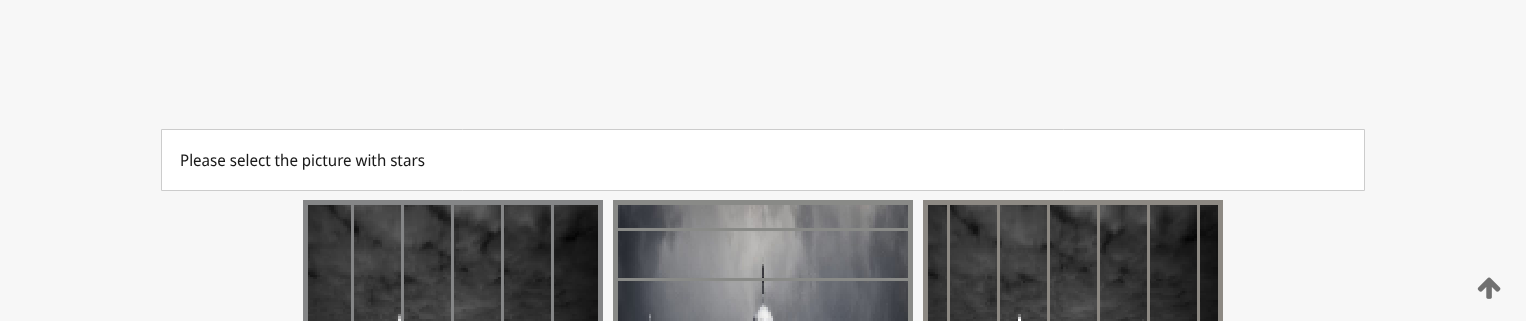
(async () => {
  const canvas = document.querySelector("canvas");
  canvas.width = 1526;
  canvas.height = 321;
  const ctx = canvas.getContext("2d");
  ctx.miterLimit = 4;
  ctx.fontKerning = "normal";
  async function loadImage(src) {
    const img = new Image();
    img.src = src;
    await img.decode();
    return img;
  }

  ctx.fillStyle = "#f7f7f7";
  ctx.fillRect(0, 0, 1526, 321);
  ctx.fillStyle = "#ffffff";
  ctx.beginPath();
  ctx.rect(161.5, 129.5, 1203, 61);
  ctx.fill();
  ctx.strokeStyle = "#cccccc";
  ctx.stroke();
  ctx.drawImage(await loadImage("img/1.png"), 303, 200, 300, 121);
  ctx.drawImage(await loadImage("img/2.png"), 613, 200, 300, 121);
  ctx.drawImage(await loadImage("img/3.png"), 923, 200, 300, 121);
  ctx.drawImage(await loadImage("img/4.png"), 1477, 277, 24, 22);
  ctx.font = "16px Noto Sans Display";
  ctx.fillStyle = "#1a1a1a";
  ctx.fillText("Please select the picture with stars", 180, 166);
})();
